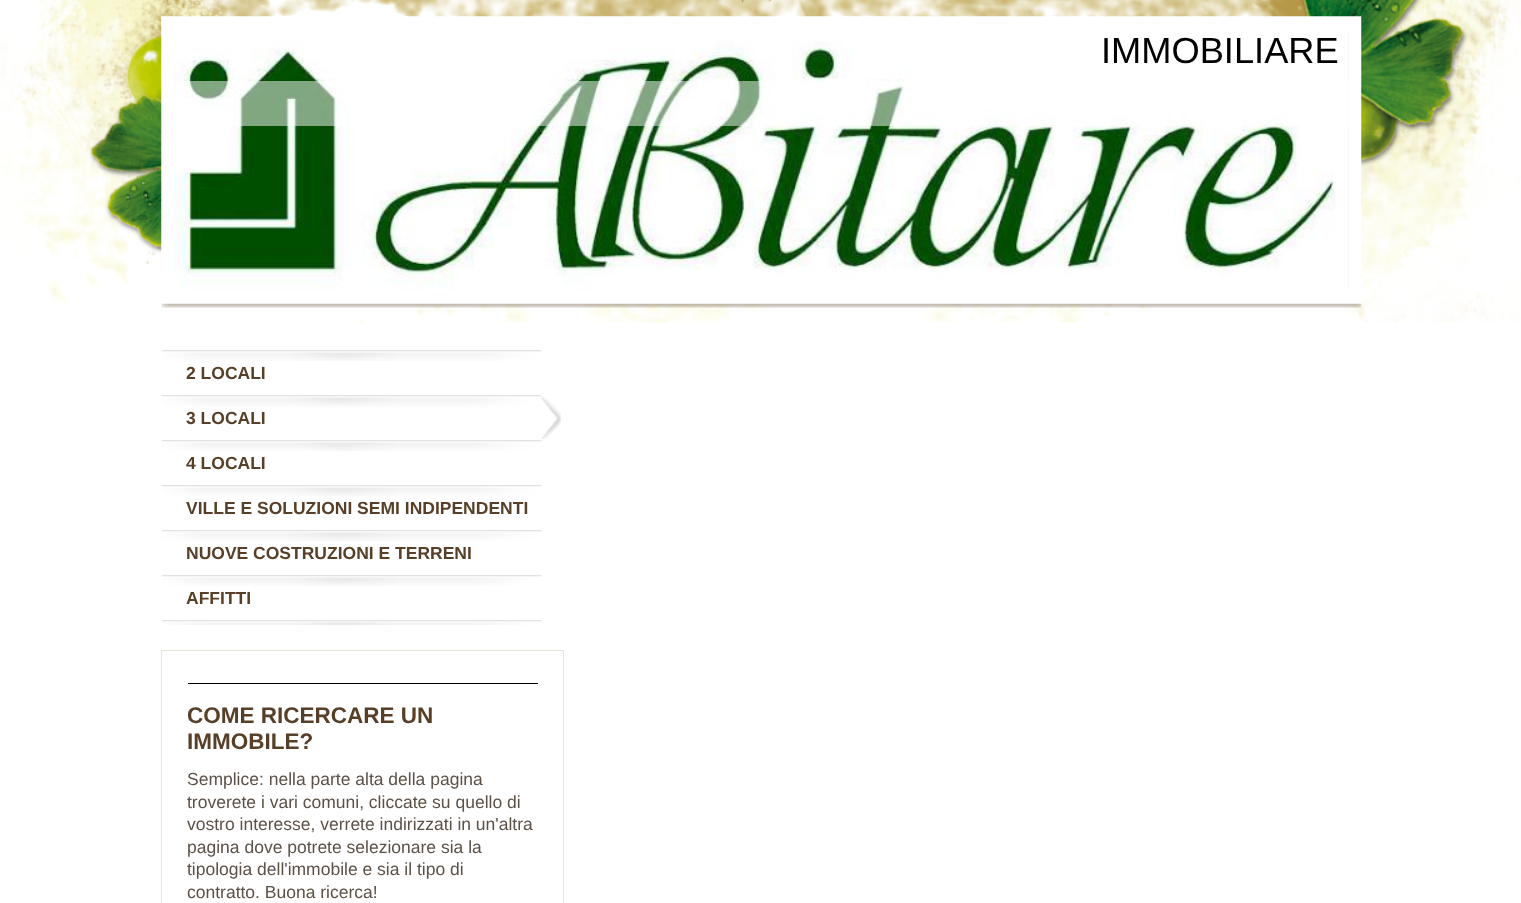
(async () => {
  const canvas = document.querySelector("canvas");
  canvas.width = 1521;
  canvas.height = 903;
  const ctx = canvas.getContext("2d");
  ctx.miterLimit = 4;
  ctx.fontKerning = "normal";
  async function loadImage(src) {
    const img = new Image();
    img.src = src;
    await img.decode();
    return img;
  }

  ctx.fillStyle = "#ffffff";
  ctx.fillRect(0, 0, 1521, 903);
  ctx.drawImage(await loadImage("img/1.png"), 0, 0, 1521, 323);
  ctx.drawImage(await loadImage("img/2.png"), 161, 16, 1201, 292);
  ctx.fillStyle = "#eeeeee";
  ctx.fillRect(1348, 29, 1, 262);
  ctx.drawImage(await loadImage("img/3.png"), 174, 29, 1175, 262);
  ctx.fillStyle = "rgba(255, 255, 255, 0.5)";
  ctx.fillRect(174, 81, 1175, 45);
  ctx.drawImage(await loadImage("img/4.png"), 161, 620, 381, 5);
  ctx.drawImage(await loadImage("img/5.png"), 161, 350, 381, 11);
  ctx.drawImage(await loadImage("img/6.png"), 161, 395, 400, 44);
  ctx.drawImage(await loadImage("img/7.png"), 161, 440, 381, 11);
  ctx.drawImage(await loadImage("img/5.png"), 161, 485, 381, 11);
  ctx.drawImage(await loadImage("img/5.png"), 161, 530, 381, 11);
  ctx.drawImage(await loadImage("img/5.png"), 161, 575, 381, 11);
  ctx.strokeStyle = "#e7e3d6";
  ctx.strokeRect(161.5, 650.5, 402, 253);
  ctx.fillStyle = "#000000";
  ctx.fillRect(188, 683, 350, 1);
  ctx.font = "36.25px Liberation Sans";
  ctx.fillText("IMMOBILIARE", 1101, 63);
  ctx.font = "bold 17.5px Liberation Sans";
  ctx.fillStyle = "#583f27";
  for (const [text, x, y] of [
    ["2 LOCALI", 186, 379],
    ["3 LOCALI", 186, 424],
    ["4 LOCALI", 186, 469],
    ["VILLE E SOLUZIONI SEMI INDIPENDENTI", 186, 514],
    ["NUOVE COSTRUZIONI E TERRENI", 186, 559],
    ["AFFITTI", 186, 604],
  ]) {
    ctx.fillText(text, x, y);
  }
  ctx.font = "bold 22.5px Liberation Sans";
  ctx.fillText("COME RICERCARE UN", 187, 723);
  ctx.fillText("IMMOBILE?", 187, 749);
  ctx.font = "17.5px Liberation Sans";
  ctx.fillStyle = "#5c5147";
  for (const [text, x, y] of [
    ["Semplice: nella parte alta della pagina", 187, 785],
    ["troverete i vari comuni, cliccate su quello di", 187, 808],
    ["vostro interesse, verrete indirizzati in un'altra", 187, 830],
    ["pagina dove potrete selezionare sia la", 187, 853],
    ["tipologia dell'immobile e sia il tipo di", 187, 875],
    ["contratto. Buona ricerca!", 187, 898],
  ]) {
    ctx.fillText(text, x, y);
  }
})();
